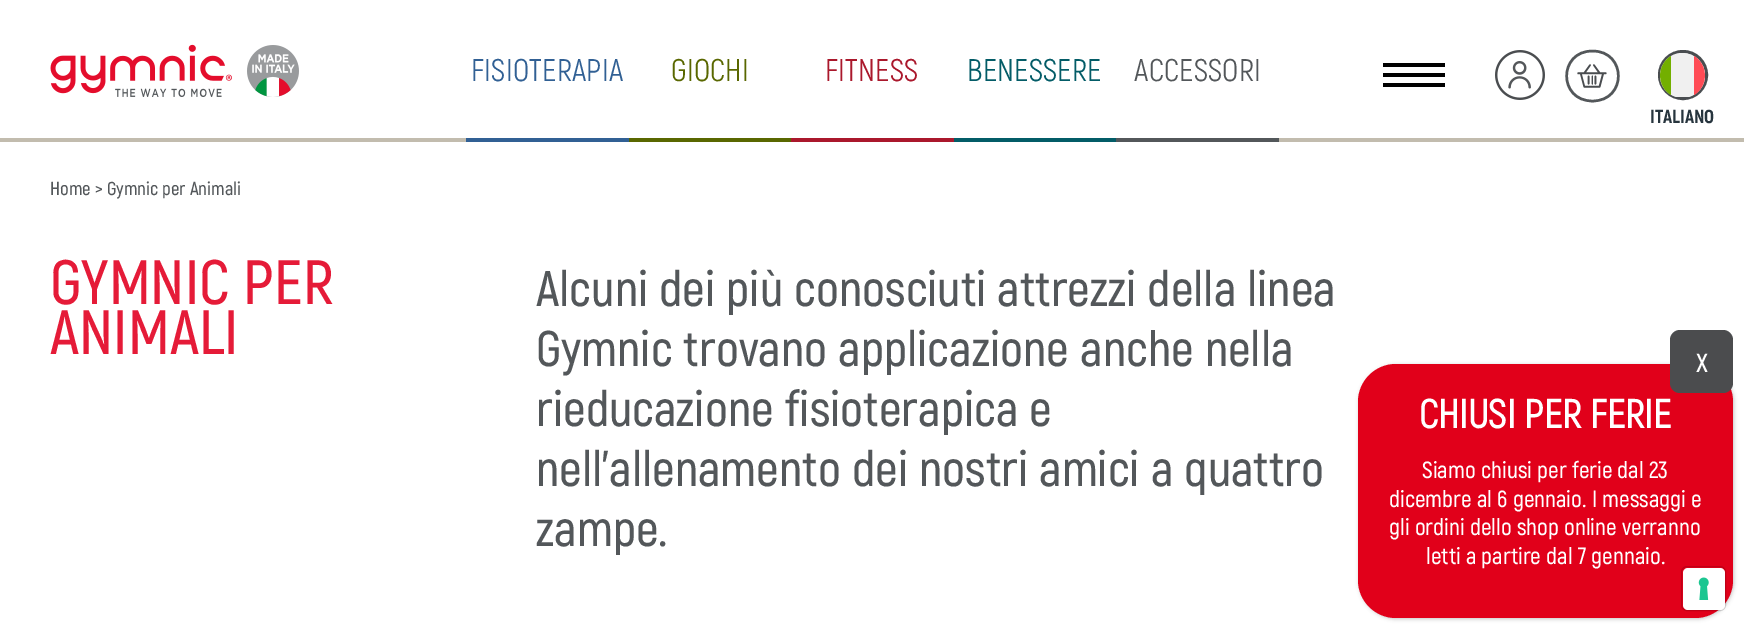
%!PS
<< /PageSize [1744 629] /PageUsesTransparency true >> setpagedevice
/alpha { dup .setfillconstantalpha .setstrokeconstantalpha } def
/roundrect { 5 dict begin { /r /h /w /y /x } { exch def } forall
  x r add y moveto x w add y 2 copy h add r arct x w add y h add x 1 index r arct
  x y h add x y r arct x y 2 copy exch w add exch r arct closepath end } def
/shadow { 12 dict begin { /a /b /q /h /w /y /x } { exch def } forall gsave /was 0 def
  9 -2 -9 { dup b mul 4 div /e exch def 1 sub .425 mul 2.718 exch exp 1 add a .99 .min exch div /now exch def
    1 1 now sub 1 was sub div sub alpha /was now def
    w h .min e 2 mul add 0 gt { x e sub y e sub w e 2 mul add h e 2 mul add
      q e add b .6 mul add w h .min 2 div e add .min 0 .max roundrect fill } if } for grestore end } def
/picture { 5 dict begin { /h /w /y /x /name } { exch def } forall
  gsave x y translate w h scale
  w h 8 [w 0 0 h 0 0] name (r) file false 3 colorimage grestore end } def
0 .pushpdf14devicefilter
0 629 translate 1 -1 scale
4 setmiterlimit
1 setgray
0 0 1744 629 rectfill
0.761 0.737 0.682 setrgbcolor
0 138 1744 4 rectfill
(img1.rgb) 50 44 249 53 picture
0.192 0.376 0.58 setrgbcolor
466 138 163 4 rectfill
/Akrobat-Regular [31.25 0 0 -31.25 0 0] selectfont
471 81 moveto 0.25 0 (FISIOTERAPIA) ashow
0.349 0.404 0 setrgbcolor
629 138 162 4 rectfill
671 81 moveto 0.25 0 (GIOCHI) ashow
0.667 0.094 0.173 setrgbcolor
791 138 163 4 rectfill
825 81 moveto 0.25 0 (FITNESS) ashow
0.012 0.361 0.404 setrgbcolor
954 138 162 4 rectfill
967 81 moveto 0.25 0 (BENESSERE) ashow
0.325 0.341 0.353 setrgbcolor
1116 138 163 4 rectfill
1134 81 moveto 0.25 0 (ACCESSORI) ashow
0 setgray
1383 63 62 4 rectfill
1383 73 62 4 rectfill
1383 83 62 4 rectfill
(img2.rgb) 1495 50 50 50 picture
(img3.rgb) 1577 64 30 24 picture
0.325 0.341 0.353 setrgbcolor
2.5 setlinewidth
newpath 1592.5 51 moveto 1627 51 1627 101 1592.5 101 curveto 1558 101 1558 51 1592.5 51 curveto closepath stroke
0.286 0.302 0.314 setrgbcolor
3 setlinewidth
newpath 1683 75 23.5 0 360 arc closepath stroke
0.941 setgray
newpath 1682 53 moveto 1670 53 1660 63 1660 76 curveto 1660 86 1667 94 1676 97 curveto 1689 97 lineto 1698 94 1705 86 1705 76 curveto 1705 63 1695 53 1682 53 curveto closepath fill
0.451 0.686 0 setrgbcolor
newpath 1671 56 moveto 1656.5 65 1656.5 86 1671 95 curveto closepath fill
1 0.294 0.333 setrgbcolor
newpath 1694 95 moveto 1708.5 86 1708.5 65 1694 56 curveto closepath fill
/Akrobat-ExtraBold [18.75 0 0 -18.75 0 0] selectfont
0.153 0.208 0.243 setrgbcolor
1650 123 moveto (ITALIANO) show
/Akrobat-SemiBold [18.75 0 0 -18.75 0 0] selectfont
0.325 0.341 0.353 setrgbcolor
50 195 moveto (Home > Gymnic per Animali) show
/Akrobat-SemiBold [62.5 0 0 -62.5 0 0] selectfont
0.898 0.106 0.22 setrgbcolor
50 304 moveto (GYMNIC PER) show
50 354 moveto (ANIMALI) show
/Akrobat-SemiBold [50 0 0 -50 0 0] selectfont
0.325 0.341 0.353 setrgbcolor
536 306 moveto (Alcuni dei più conosciuti attrezzi della linea) show
536 366 moveto (Gymnic trovano applicazione anche nella) show
536 426 moveto (rieducazione fisioterapica e) show
536 486 moveto (nell’allenamento dei nostri amici a quattro) show
536 546 moveto (zampe.) show
0.008 setgray
1359 365 375 254 38 2 0.23 shadow
0.882 0 0.102 setrgbcolor
1358 364 375 254 38 roundrect fill
0.294 0.298 0.306 setrgbcolor
1670 330 63 63 10 roundrect fill
/Akrobat-Bold [25 0 0 -25 0 0] selectfont
1 setgray
1696 372 moveto (X) show
/Akrobat-Bold [40 0 0 -40 0 0] selectfont
1419 428 moveto (CHIUSI PER FERIE) show
/Akrobat-SemiBold [23.4 0 0 -23.4 0 0] selectfont
1422 478 moveto (Siamo chiusi per ferie dal 23) show
1389 507 moveto (dicembre al 6 gennaio. I messaggi e) show
1389 535 moveto (gli ordini dello shop online verranno) show
1426 564 moveto (letti a partire dal 7 gennaio.) show
0.15 alpha
0 setgray
1 setlinewidth
1681.5 566.5 44 44 5.5 roundrect stroke
1 alpha
1 setgray
1683 568 42 42 5 roundrect fill
(img4.rgb) 1698 577 11 23 picture
.poppdf14devicefilter showpage
